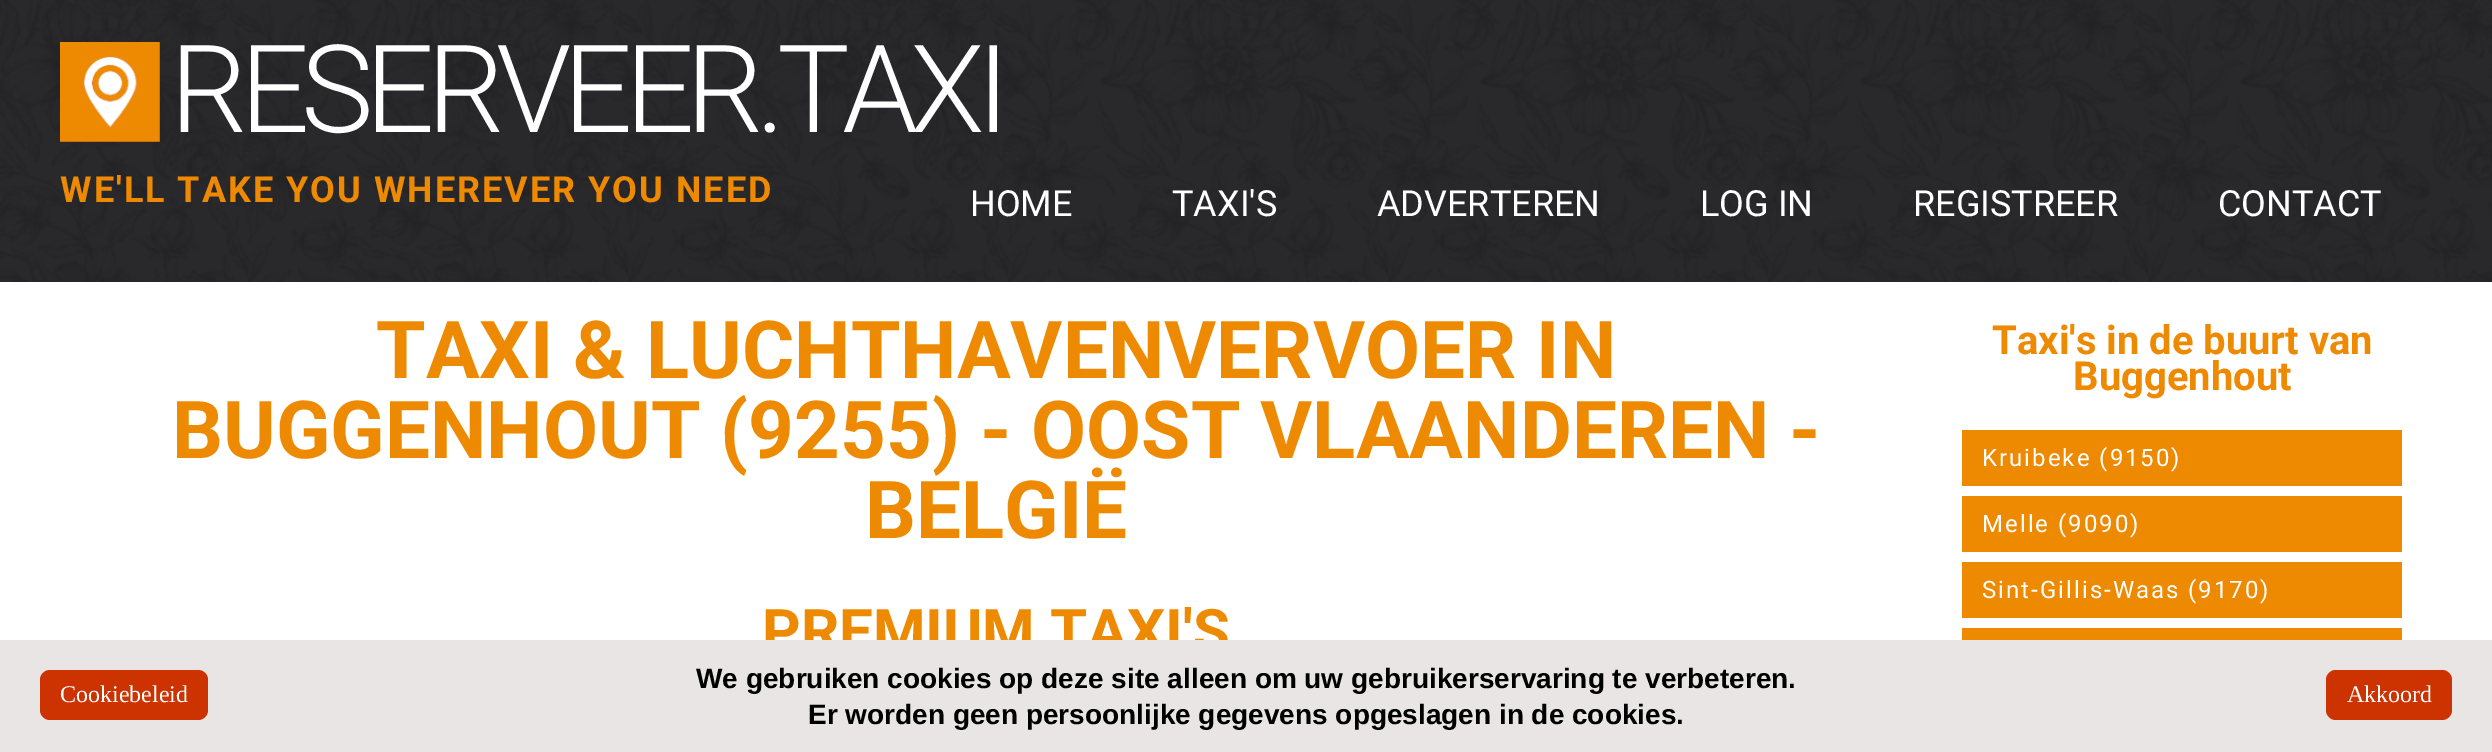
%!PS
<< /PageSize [2492 752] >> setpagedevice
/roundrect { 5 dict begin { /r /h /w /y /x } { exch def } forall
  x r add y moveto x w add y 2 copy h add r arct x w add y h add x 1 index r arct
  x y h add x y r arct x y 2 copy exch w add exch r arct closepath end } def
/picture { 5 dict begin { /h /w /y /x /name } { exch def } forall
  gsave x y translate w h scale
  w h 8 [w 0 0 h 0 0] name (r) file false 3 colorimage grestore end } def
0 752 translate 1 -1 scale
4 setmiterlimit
1 setgray
0 0 2492 752 rectfill
(img1.rgb) 0 0 2492 282 picture
(img2.rgb) 60 42 100 100 picture
/Roboto-Light [122 0 0 -122 0 0] selectfont
170 132 moveto -8 0 (RESERVEER.TAXI) ashow
/Roboto-Bold [36 0 0 -36 0 0] selectfont
0.933 0.541 0.004 setrgbcolor
60 202 moveto 2 0 (WE'LL TAKE YOU WHEREVER YOU NEED) ashow
/Roboto-Regular [36 0 0 -36 0 0] selectfont
1 setgray
970 216 moveto (HOME) show
1172 216 moveto (TAXI'S) show
1377 216 moveto (ADVERTEREN) show
1700 216 moveto (LOG IN) show
1913 216 moveto (REGISTREER) show
2218 216 moveto (CONTACT) show
/Roboto-Bold [60 0 0 -60 0 0] selectfont
0.933 0.541 0.004 setrgbcolor
762 652 moveto (PREMIUM TAXI'S) show
0.914 0.898 0.898 setrgbcolor
0 640 2492 112 rectfill
0.8 0.2 0 setrgbcolor
40 670 168 50 10 roundrect fill
/LiberationSerif-Regular [24 0 0 -24 0 0] selectfont
1 setgray
60 702 moveto (Cookiebeleid) show
/LiberationSans-Bold [28 0 0 -28 0 0] selectfont
0 setgray
696 688 moveto (We gebruiken cookies op deze site alleen om uw gebruikerservaring te verbeteren.) show
808 724 moveto (Er worden geen persoonlijke gegevens opgeslagen in de cookies.) show
0.8 0.2 0 setrgbcolor
2326 670 126 50 10 roundrect fill
/LiberationSerif-Regular [24 0 0 -24 0 0] selectfont
1 setgray
2347 702 moveto (Akkoord) show
/Roboto-Bold [80 0 0 -80 0 0] selectfont
0.933 0.541 0.004 setrgbcolor
376 378 moveto (TAXI & LUCHTHAVENVERVOER IN) show
172 458 moveto (BUGGENHOUT \(9255\) - OOST VLAANDEREN -) show
865 538 moveto (BELGIË) show
/Roboto-Bold [40 0 0 -40 0 0] selectfont
1992 354 moveto (Taxi's in de buurt van) show
2073 390 moveto (Buggenhout) show
1962 430 440 56 rectfill
/Roboto-Regular [24 0 0 -24 0 0] selectfont
1 setgray
1982 466 moveto 2 0 (Kruibeke \(9150\)) ashow
0.933 0.541 0.004 setrgbcolor
1962 496 440 56 rectfill
1 setgray
1982 532 moveto 2 0 (Melle \(9090\)) ashow
0.933 0.541 0.004 setrgbcolor
1962 562 440 56 rectfill
1 setgray
1982 598 moveto 2 0 (Sint-Gillis-Waas \(9170\)) ashow
0.933 0.541 0.004 setrgbcolor
1962 628 440 12 rectfill
showpage
